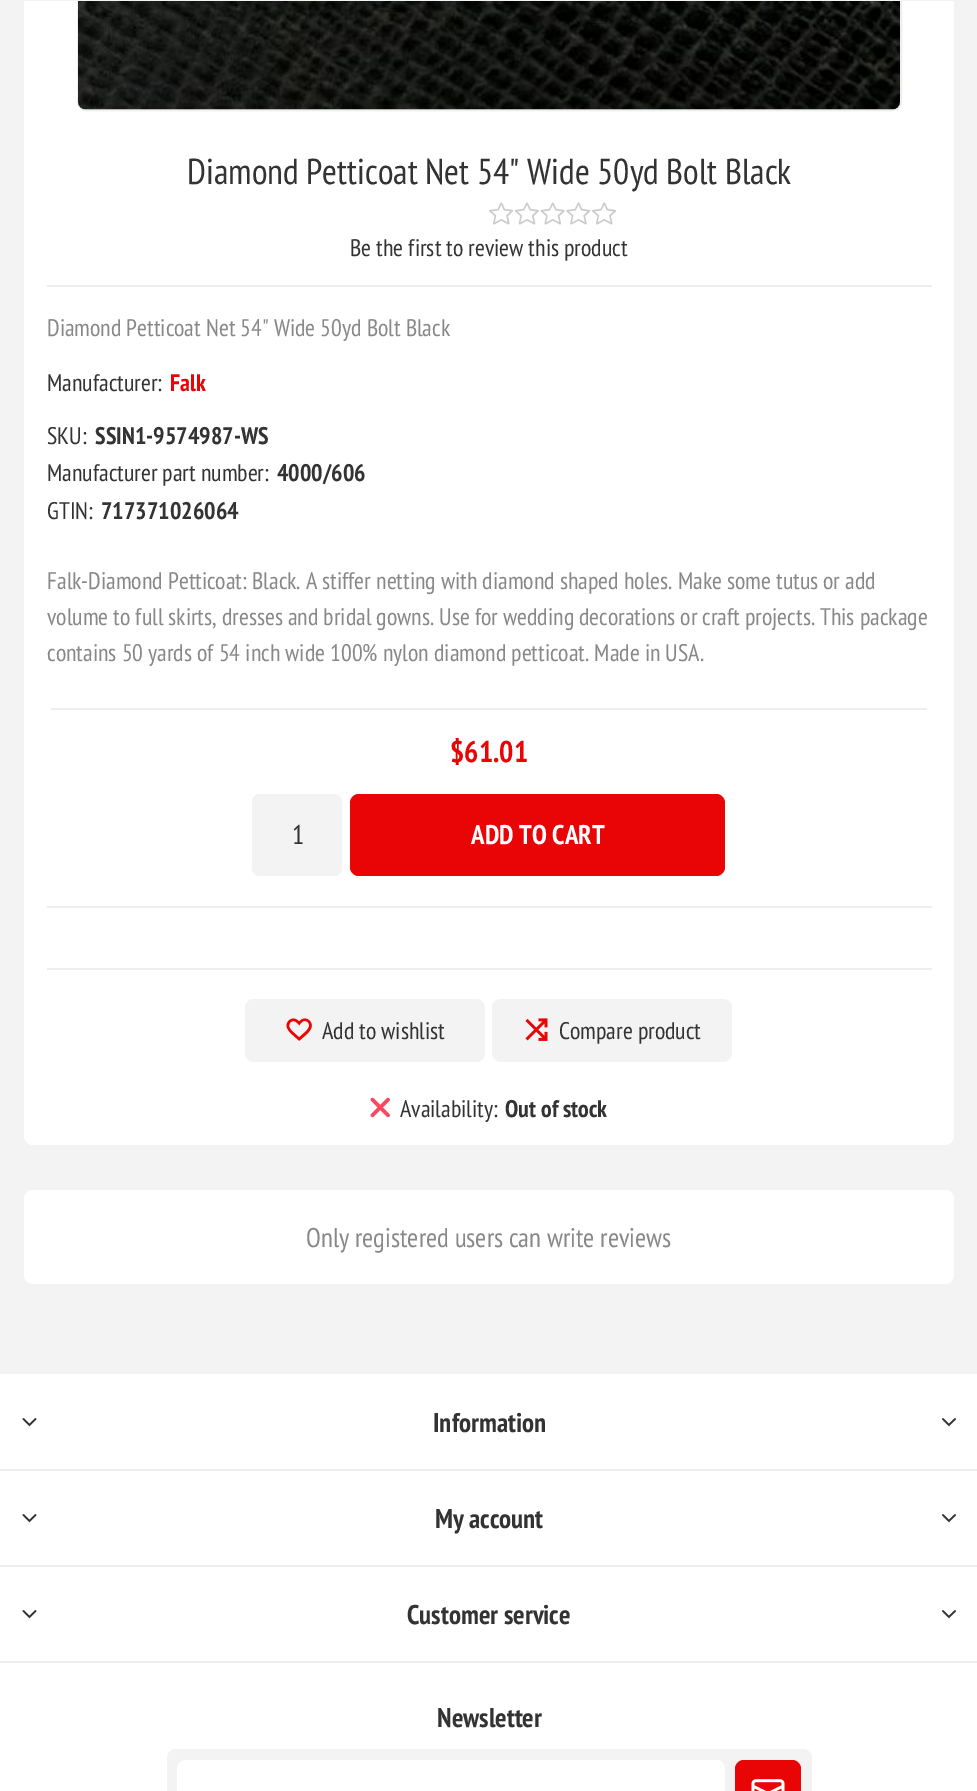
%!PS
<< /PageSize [977 1791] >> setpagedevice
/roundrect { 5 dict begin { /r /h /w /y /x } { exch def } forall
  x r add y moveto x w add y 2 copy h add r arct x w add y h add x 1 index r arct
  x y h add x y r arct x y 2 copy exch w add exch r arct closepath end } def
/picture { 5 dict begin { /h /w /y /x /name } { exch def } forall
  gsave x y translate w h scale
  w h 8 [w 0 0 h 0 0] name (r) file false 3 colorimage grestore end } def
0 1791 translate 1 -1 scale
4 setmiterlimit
0.953 setgray
0 0 977 1791 rectfill
1 setgray
24 -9 930 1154 9 roundrect fill
0.933 setgray
2 setlinewidth
78 -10 823 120 8 roundrect stroke
0.953 setgray
24 0 930 1 rectfill
(img1.rgb) 78 1 822 109 picture
/PTSansNarrow-Regular [36 0 0 -36 0 0] selectfont
0.2 setgray
187 184 moveto (Diamond Petticoat Net 54" Wide 50yd Bolt Black) show
(img2.rgb) 489 202 127 23 picture
/PTSansNarrow-Regular [24 0 0 -24 0 0] selectfont
350 256 moveto (Be the first to review this product) show
0.933 setgray
47 285 885 2 rectfill
0.533 setgray
47 336 moveto (Diamond Petticoat Net 54" Wide 50yd Bolt Black) show
0.2 setgray
47 391 moveto (Manufacturer:) show
/PTSansNarrow-Bold [24 0 0 -24 0 0] selectfont
0.914 0.02 0.02 setrgbcolor
170 391 moveto (Falk) show
/PTSansNarrow-Regular [24 0 0 -24 0 0] selectfont
0.2 setgray
47 444 moveto (SKU:) show
/PTSansNarrow-Bold [24 0 0 -24 0 0] selectfont
95 444 moveto (SSIN1-9574987-WS) show
/PTSansNarrow-Regular [24 0 0 -24 0 0] selectfont
47 481 moveto (Manufacturer part number:) show
/PTSansNarrow-Bold [24 0 0 -24 0 0] selectfont
277 481 moveto (4000/606) show
/PTSansNarrow-Regular [24 0 0 -24 0 0] selectfont
47 519 moveto (GTIN:) show
/PTSansNarrow-Bold [24 0 0 -24 0 0] selectfont
101 519 moveto (717371026064) show
/PTSansNarrow-Regular [24 0 0 -24 0 0] selectfont
0.533 setgray
47 589 moveto (Falk-Diamond Petticoat: Black. A stiffer netting with diamond shaped holes. Make some tutus or add) show
47 625 moveto (volume to full skirts, dresses and bridal gowns. Use for wedding decorations or craft projects. This package) show
47 661 moveto (contains 50 yards of 54 inch wide 100% nylon diamond petticoat. Made in USA.) show
0.933 setgray
51 708 876 2 rectfill
/PTSansNarrow-Bold [30 0 0 -30 0 0] selectfont
0.914 0.02 0.02 setrgbcolor
450 762 moveto ($61.01) show
0.933 setgray
47 906 885 2 rectfill
0.953 setgray
252 794 90 82 8 roundrect fill
/PTSansNarrow-Regular [27 0 0 -27 0 0] selectfont
0.2 setgray
292 844 moveto (1) show
0.914 0.02 0.02 setrgbcolor
350 794 375 82 9 roundrect fill
/PTSansNarrow-Bold [27 0 0 -27 0 0] selectfont
1 setgray
471 844 moveto (ADD TO CART) show
0.933 setgray
47 968 885 2 rectfill
0.953 setgray
245 999 240 63 9 roundrect fill
(img3.rgb) 286 1018 26 23 picture
/PTSansNarrow-Regular [24 0 0 -24 0 0] selectfont
0.2 setgray
322 1039 moveto (Add to wishlist) show
0.953 setgray
492 999 240 63 9 roundrect fill
(img4.rgb) 525 1018 23 23 picture
0.2 setgray
559 1039 moveto (Compare product) show
(img5.rgb) 370 1097 20 21 picture
400 1117 moveto (Availability:) show
/PTSansNarrow-Bold [24 0 0 -24 0 0] selectfont
505 1117 moveto (Out of stock) show
1 setgray
24 1190 930 94 9 roundrect fill
/PTSansNarrow-Regular [27 0 0 -27 0 0] selectfont
0.533 setgray
306 1247 moveto (Only registered users can write reviews) show
1 setgray
0 1374 977 417 rectfill
0.933 setgray
0 1469 977 2 rectfill
(img6.rgb) 22 1418 15 9 picture
/PTSansNarrow-Bold [27 0 0 -27 0 0] selectfont
0.2 setgray
433 1432 moveto (Information) show
(img7.rgb) 942 1418 14 9 picture
0.933 setgray
0 1565 977 2 rectfill
(img6.rgb) 22 1514 15 9 picture
0.2 setgray
435 1528 moveto (My account) show
(img7.rgb) 942 1514 14 9 picture
0.933 setgray
0 1661 977 2 rectfill
(img6.rgb) 22 1610 15 9 picture
0.2 setgray
407 1624 moveto (Customer service) show
(img7.rgb) 942 1610 14 9 picture
437 1727 moveto (Newsletter) show
0.953 setgray
167 1749 645 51 9 roundrect fill
1 setgray
177 1760 548 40 9 roundrect fill
0.914 0.02 0.02 setrgbcolor
735 1760 66 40 9 roundrect fill
(img8.rgb) 751 1779 34 12 picture
showpage
